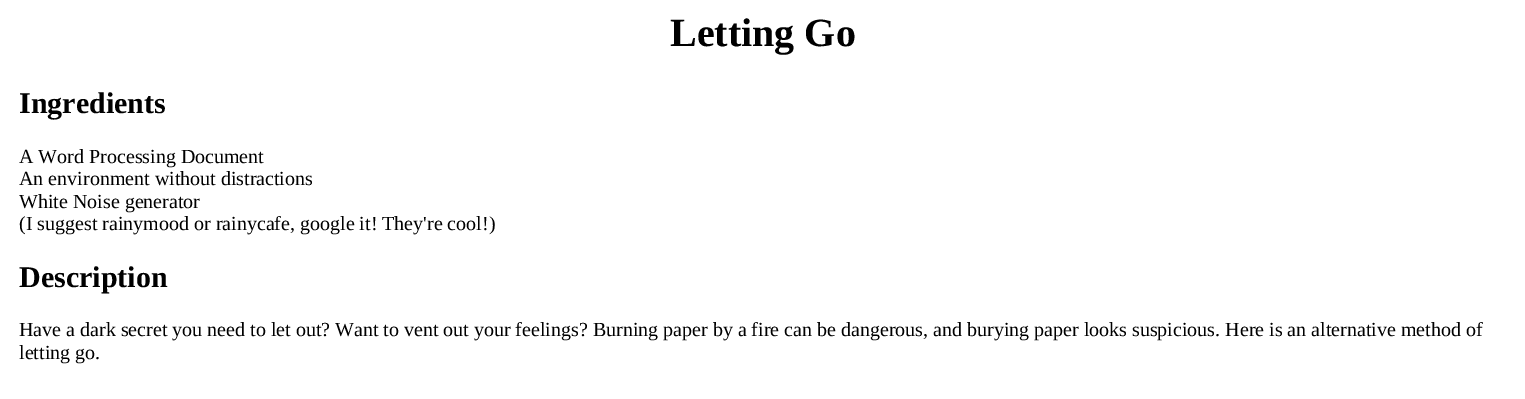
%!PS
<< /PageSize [1525 399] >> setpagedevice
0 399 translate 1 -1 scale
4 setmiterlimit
1 setgray
0 0 1525 399 rectfill
/LiberationSerif-Bold [40 0 0 -40 0 0] selectfont
0 setgray
670 46 moveto (Letting Go) show
/LiberationSerif-Bold [30 0 0 -30 0 0] selectfont
19 113 moveto (Ingredients) show
/LiberationSerif-Regular [20 0 0 -20 0 0] selectfont
19 163 moveto (A Word Processing Document) show
19 185 moveto (An environment without distractions) show
19 208 moveto (White Noise generator) show
19 230 moveto (\(I suggest rainymood or rainycafe, google it! They're cool!\)) show
/LiberationSerif-Bold [30 0 0 -30 0 0] selectfont
19 287 moveto (Description) show
/LiberationSerif-Regular [20 0 0 -20 0 0] selectfont
19 336 moveto (Have a dark secret you need to let out? Want to vent out your feelings? Burning paper by a fire can be dangerous, and burying paper looks suspicious. Here is an alternative method of) show
19 359 moveto (letting go.) show
showpage
